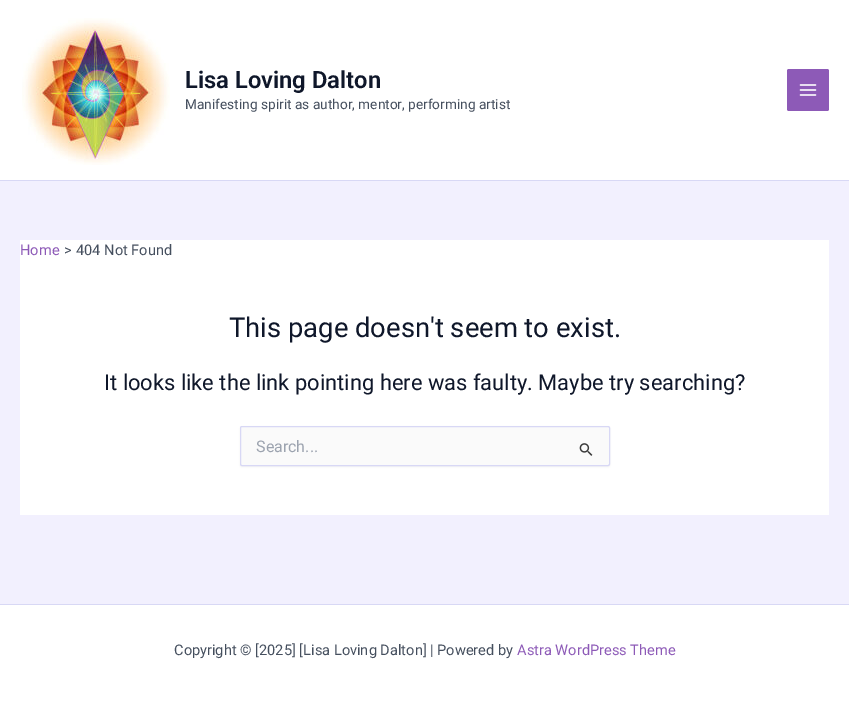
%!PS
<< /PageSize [849 705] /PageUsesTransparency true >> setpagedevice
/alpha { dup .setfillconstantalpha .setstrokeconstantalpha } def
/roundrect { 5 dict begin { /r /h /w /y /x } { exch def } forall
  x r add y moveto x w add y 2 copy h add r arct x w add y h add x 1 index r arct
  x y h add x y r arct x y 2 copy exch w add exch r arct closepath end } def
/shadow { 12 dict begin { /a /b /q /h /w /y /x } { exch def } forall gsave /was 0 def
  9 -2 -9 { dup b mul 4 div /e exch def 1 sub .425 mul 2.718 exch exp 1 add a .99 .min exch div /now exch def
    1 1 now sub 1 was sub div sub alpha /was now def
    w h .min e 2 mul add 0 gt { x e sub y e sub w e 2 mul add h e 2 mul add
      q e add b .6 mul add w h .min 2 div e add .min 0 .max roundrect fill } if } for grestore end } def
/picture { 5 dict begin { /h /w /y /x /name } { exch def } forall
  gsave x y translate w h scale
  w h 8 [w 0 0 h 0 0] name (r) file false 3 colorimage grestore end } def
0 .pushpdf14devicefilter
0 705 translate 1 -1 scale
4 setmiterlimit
0.949 0.941 0.996 setrgbcolor
0 0 849 705 rectfill
1 setgray
0 0 849 180 rectfill
0.847 0.847 0.961 setrgbcolor
0 180 849 1 rectfill
(img1.rgb) 22 18 148 147 picture
/Roboto-SemiBold [23.75 0 0 -23.75 0 0] selectfont
0.059 0.09 0.165 setrgbcolor
185 88 moveto (Lisa Loving Dalton) show
/Roboto-Regular [13.7 0 0 -13.7 0 0] selectfont
0.271 0.31 0.369 setrgbcolor
185 109 moveto (Manifesting spirit as author, mentor, performing artist) show
0.553 0.353 0.718 setrgbcolor
787 69 42 42 2 roundrect fill
(img2.rgb) 799 84 18 12 picture
1 setgray
20 240 809 275 rectfill
/Roboto-Regular [14.6 0 0 -14.6 0 0] selectfont
0.553 0.353 0.718 setrgbcolor
20 255 moveto (Home) show
0.271 0.31 0.369 setrgbcolor
64 255 moveto (>) show
76 255 moveto (404 Not Found) show
/Roboto-Regular [27.4 0 0 -27.4 0 0] selectfont
0.059 0.09 0.165 setrgbcolor
229 337 moveto (This page doesn't seem to exist.) show
/Roboto-Regular [21.9 0 0 -21.9 0 0] selectfont
104 390 moveto (It looks like the link pointing here was faulty. Maybe try searching?) show
0 setgray
240 427 370 40 2 1 0.05 shadow
0.98 setgray
240.5 426.5 369 39 1.5 roundrect gsave fill grestore
0.847 0.847 0.961 setrgbcolor
stroke
/Roboto-Regular [16 0 0 -16 0 0] selectfont
0.612 0.639 0.686 setrgbcolor
256 452 moveto (Search...) show
(img3.rgb) 579 443 14 13 picture
1 setgray
0 605 849 100 rectfill
0.847 0.847 0.961 setrgbcolor
0 604 849 1 rectfill
/Roboto-Regular [14.6 0 0 -14.6 0 0] selectfont
0.271 0.31 0.369 setrgbcolor
174 655 moveto (Copyright © [2025] [Lisa Loving Dalton] | Powered by) show
0.553 0.353 0.718 setrgbcolor
517 655 moveto (Astra WordPress Theme) show
.poppdf14devicefilter showpage
